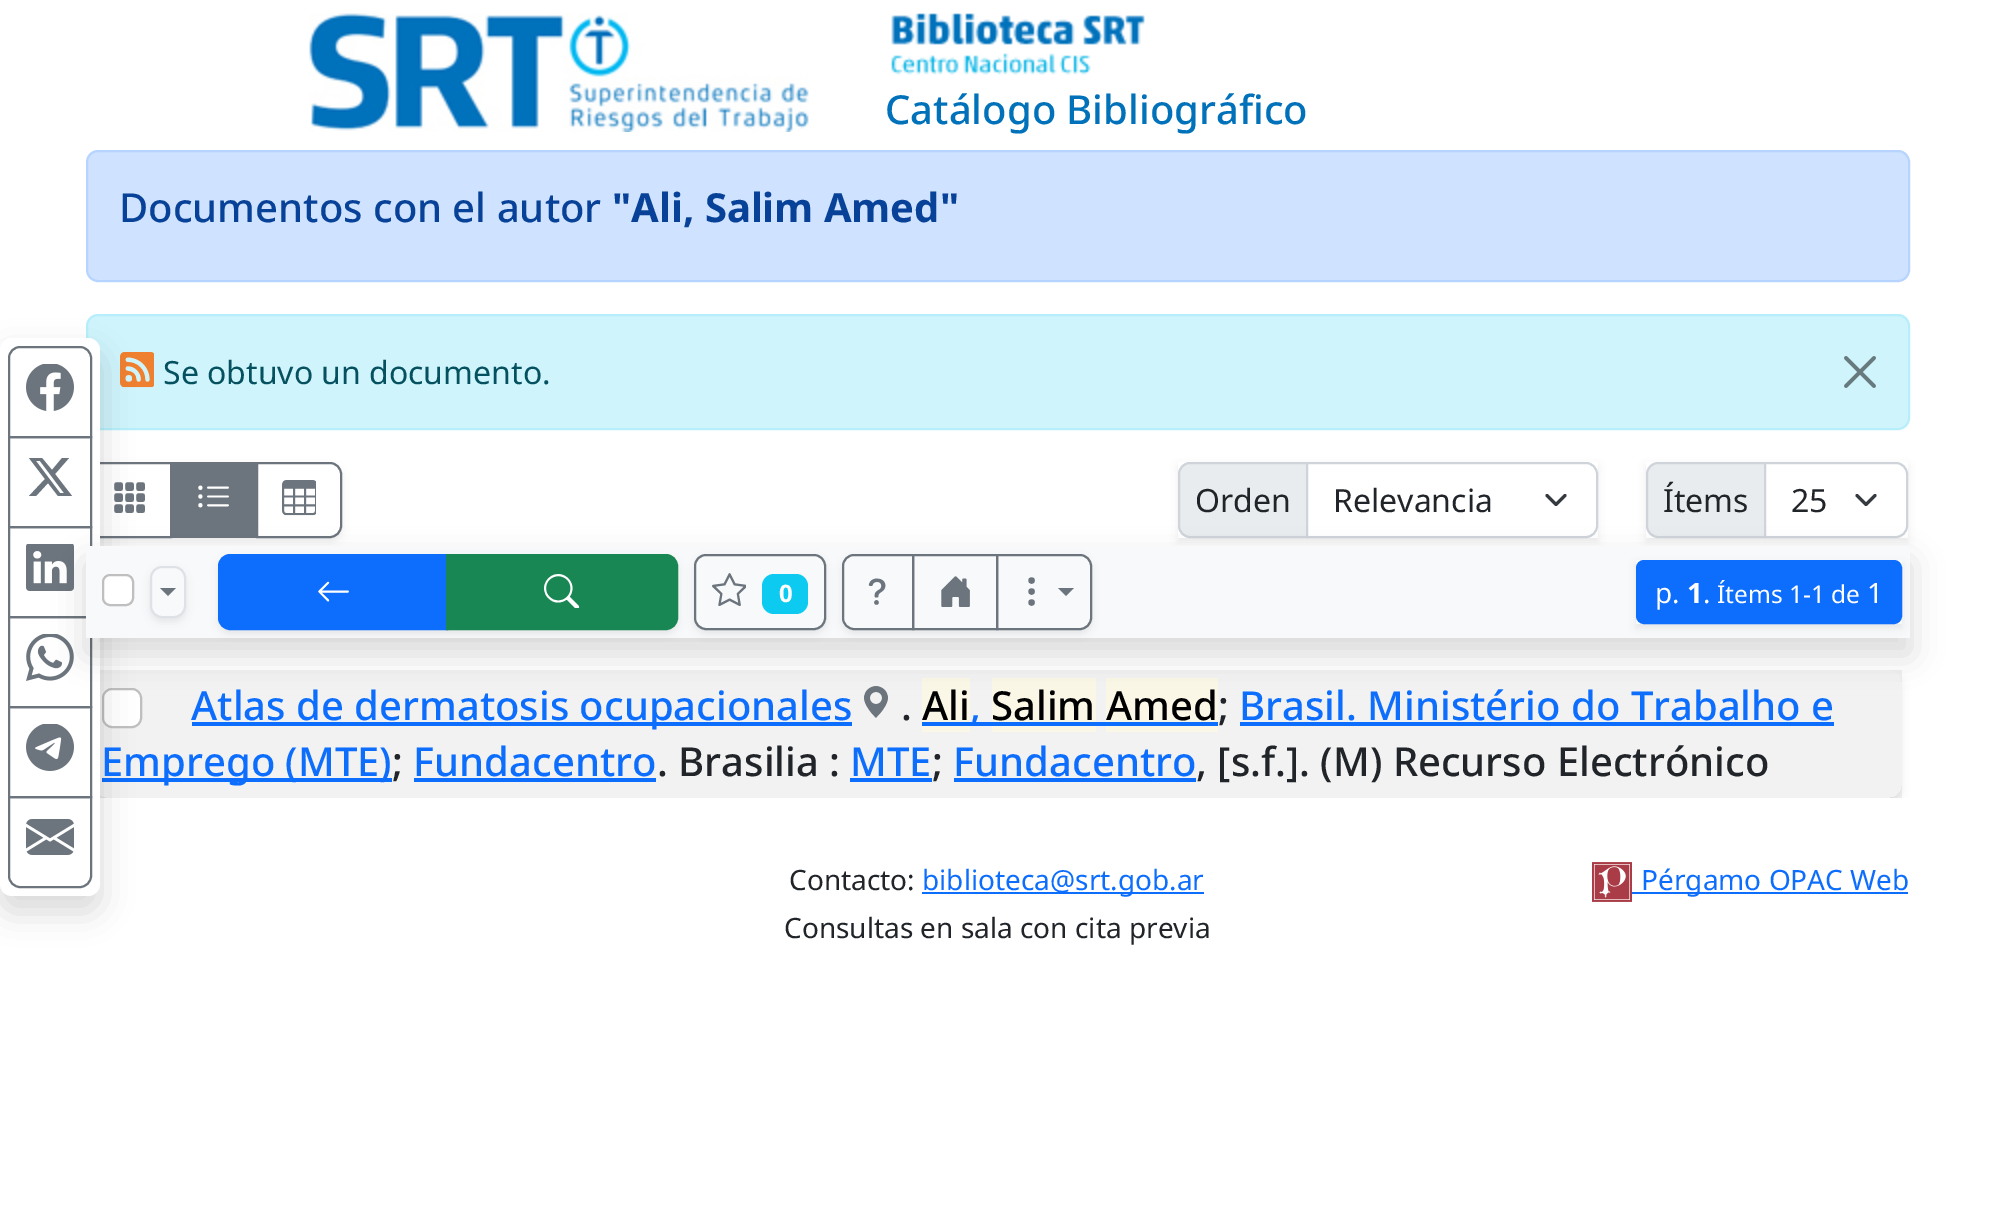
%!PS
<< /PageSize [1994 1230] /PageUsesTransparency true >> setpagedevice
/alpha { dup .setfillconstantalpha .setstrokeconstantalpha } def
/roundrect { 5 dict begin { /r /h /w /y /x } { exch def } forall
  x r add y moveto x w add y 2 copy h add r arct x w add y h add x 1 index r arct
  x y h add x y r arct x y 2 copy exch w add exch r arct closepath end } def
/shadow { 12 dict begin { /a /b /q /h /w /y /x } { exch def } forall gsave /was 0 def
  9 -2 -9 { dup b mul 4 div /e exch def 1 sub .425 mul 2.718 exch exp 1 add a .99 .min exch div /now exch def
    1 1 now sub 1 was sub div sub alpha /was now def
    w h .min e 2 mul add 0 gt { x e sub y e sub w e 2 mul add h e 2 mul add
      q e add b .6 mul add w h .min 2 div e add .min 0 .max roundrect fill } if } for grestore end } def
/picture { 5 dict begin { /h /w /y /x /name } { exch def } forall
  gsave x y translate w h scale
  w h 8 [w 0 0 h 0 0] name (r) file false 3 colorimage grestore end } def
0 .pushpdf14devicefilter
0 1230 translate 1 -1 scale
4 setmiterlimit
1 setgray
0 0 1994 1230 rectfill
0.812 0.957 0.988 setrgbcolor
87 315 1822 114 11 roundrect gsave fill grestore
0.714 0.937 0.984 setrgbcolor
2 setlinewidth
stroke
(img8.rgb) 120 352 34 36 picture
gsave
newpath 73 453 moveto 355 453 lineto 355 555 lineto 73 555 lineto closepath 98 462 moveto 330 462 lineto 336.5 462 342 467.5 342 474 curveto 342 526 lineto 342 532.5 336.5 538 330 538 curveto 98 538 lineto 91.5 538 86 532.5 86 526 curveto 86 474 lineto 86 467.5 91.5 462 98 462 curveto closepath eoclip newpath
0 setgray
86 466 256 76 12 4 0.07 shadow
grestore
0.424 0.459 0.49 setrgbcolor
87 463 84 74 rectstroke
(img10.rgb) 114 482 31 31 picture
gsave
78 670 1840 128 rectclip
newpath 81 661 moveto 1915 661 lineto 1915 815 lineto 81 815 lineto closepath 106 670 moveto 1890 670 lineto 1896.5 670 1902 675.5 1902 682 curveto 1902 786 lineto 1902 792.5 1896.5 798 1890 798 curveto 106 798 lineto 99.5 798 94 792.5 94 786 curveto 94 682 lineto 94 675.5 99.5 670 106 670 curveto closepath eoclip newpath
0 setgray
94 674 1808 128 12 4 0.07 shadow
grestore
0.05 alpha
0 setgray
100 670 1802 128 rectfill
1 alpha
1 setgray
102 688 40 40 10 roundrect fill
0.25 alpha
0 setgray
103 689 38 38 9 roundrect stroke
1 alpha
0.051 0.431 0.992 setrgbcolor
102 778 290 4 rectfill
0 setgray
0 354 100 558 12 16 0.15 shadow
1 setgray
0 338 100 558 12 roundrect fill
0.424 0.459 0.49 setrgbcolor
newpath 20 347 moveto 80 347 lineto 86 347 91 352 91 358 curveto 91 437 lineto 9 437 lineto 9 358 lineto 9 352 14 347 20 347 curveto closepath stroke
(img1.rgb) 26 364 48 47 picture
9 437 82 90 rectstroke
newpath 62 458 moveto 69 458 lineto 55 474 lineto 72 496 lineto 58 496 lineto 48 483 lineto 36 496 lineto 29 496 lineto 45 479 lineto 29 458 lineto 42 458 lineto 52 470 lineto closepath 60 493 moveto 64 493 lineto 40 461 lineto 36 461 lineto closepath fill
9 527 82 90 rectstroke
(img2.rgb) 26 544 48 47 picture
9 617 82 90 rectstroke
(img3.rgb) 26 634 48 47 picture
9 707 82 90 rectstroke
(img4.rgb) 26 724 48 47 picture
newpath 9 797 moveto 91 797 lineto 91 876 lineto 91 882 86 887 80 887 curveto 20 887 lineto 14 887 9 882 9 876 curveto closepath stroke
(img5.rgb) 26 819 48 36 picture
(img6.rgb) 309 13 500 119 picture
(img7.rgb) 891 13 254 62 picture
/NotoSans-Medium [40 0 0 -40 0 0] selectfont
0.004 0.447 0.729 setrgbcolor
885 124 moveto (Catálogo Bibliográfico) show
0.812 0.886 1 setrgbcolor
87 151 1822 130 11 roundrect gsave fill grestore
0.714 0.831 0.996 setrgbcolor
stroke
0.031 0.259 0.596 setrgbcolor
119 222 moveto (Documentos con el autor) show
/NotoSans-Bold [40 0 0 -40 0 0] selectfont
612 222 moveto ("Ali, Salim Amed") show
/NotoSans-Regular [32 0 0 -32 0 0] selectfont
0.02 0.318 0.376 setrgbcolor
163 384 moveto (Se obtuvo un documento.) show
(img9.rgb) 1844 356 32 32 picture
0.424 0.459 0.49 setrgbcolor
172 462 84 76 rectfill
(img11.rgb) 198 485 31 23 picture
newpath 257 463 moveto 330 463 lineto 336 463 341 468 341 474 curveto 341 526 lineto 341 532 336 537 330 537 curveto 257 537 lineto closepath stroke
(img12.rgb) 282 480 34 36 picture
gsave
newpath 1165 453 moveto 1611 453 lineto 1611 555 lineto 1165 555 lineto closepath 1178 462 moveto 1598 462 lineto 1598 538 lineto 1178 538 lineto closepath eoclip newpath
0 setgray
1178 466 420 76 0 4 0.07 shadow
grestore
0.914 0.925 0.937 setrgbcolor
newpath 1190 463 moveto 1307 463 lineto 1307 537 lineto 1190 537 lineto 1184 537 1179 532 1179 526 curveto 1179 474 lineto 1179 468 1184 463 1190 463 curveto closepath gsave fill grestore
0.808 0.831 0.855 setrgbcolor
stroke
0.129 0.145 0.161 setrgbcolor
1195 512 moveto (Orden) show
1 setgray
newpath 1306 462 moveto 1586 462 lineto 1592.5 462 1598 467.5 1598 474 curveto 1598 526 lineto 1598 532.5 1592.5 538 1586 538 curveto 1306 538 lineto closepath fill
0.204 0.227 0.251 setrgbcolor
3 setlinewidth
1 setlinecap
1 setlinejoin
newpath 1547 495.5 moveto 1556 504.5 lineto 1565 495.5 lineto stroke
0.808 0.831 0.855 setrgbcolor
2 setlinewidth
0 setlinecap
0 setlinejoin
newpath 1307 463 moveto 1586 463 lineto 1592 463 1597 468 1597 474 curveto 1597 526 lineto 1597 532 1592 537 1586 537 curveto 1307 537 lineto closepath stroke
0.129 0.145 0.161 setrgbcolor
1333 512 moveto (Relevancia) show
gsave
newpath 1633 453 moveto 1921 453 lineto 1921 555 lineto 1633 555 lineto closepath 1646 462 moveto 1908 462 lineto 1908 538 lineto 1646 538 lineto closepath eoclip newpath
0 setgray
1646 466 262 76 0 4 0.07 shadow
grestore
0.914 0.925 0.937 setrgbcolor
newpath 1658 463 moveto 1765 463 lineto 1765 537 lineto 1658 537 lineto 1652 537 1647 532 1647 526 curveto 1647 474 lineto 1647 468 1652 463 1658 463 curveto closepath gsave fill grestore
0.808 0.831 0.855 setrgbcolor
stroke
0.129 0.145 0.161 setrgbcolor
1663 512 moveto (Ítems) show
1 setgray
newpath 1764 462 moveto 1896 462 lineto 1902.5 462 1908 467.5 1908 474 curveto 1908 526 lineto 1908 532.5 1902.5 538 1896 538 curveto 1764 538 lineto closepath fill
0.204 0.227 0.251 setrgbcolor
3 setlinewidth
1 setlinecap
1 setlinejoin
newpath 1857 495.5 moveto 1866 504.5 lineto 1875 495.5 lineto stroke
0.808 0.831 0.855 setrgbcolor
2 setlinewidth
0 setlinecap
0 setlinejoin
newpath 1765 463 moveto 1896 463 lineto 1902 463 1907 468 1907 474 curveto 1907 526 lineto 1907 532 1902 537 1896 537 curveto 1765 537 lineto closepath stroke
0.129 0.145 0.161 setrgbcolor
1791 512 moveto (25) show
(img19.rgb) 864 686 24 32 picture
0.98 0.969 0.906 setrgbcolor
922 678 48 54 rectfill
992 678 104 54 rectfill
1106 678 112 54 rectfill
0 setgray
86 562 1824 92 0 16 0.15 shadow
0.973 0.976 0.98 setrgbcolor
86 546 1824 92 rectfill
1 setgray
102 574 32 32 8 roundrect fill
0.25 alpha
0 setgray
103 575 30 30 7 roundrect stroke
gsave
newpath 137 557 moveto 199 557 lineto 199 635 lineto 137 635 lineto closepath 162 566 moveto 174 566 lineto 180.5 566 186 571.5 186 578 curveto 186 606 lineto 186 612.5 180.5 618 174 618 curveto 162 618 lineto 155.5 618 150 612.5 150 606 curveto 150 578 lineto 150 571.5 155.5 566 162 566 curveto closepath eoclip newpath
1 alpha
150 570 36 52 12 4 0.07 shadow
grestore
1 alpha
0.871 0.886 0.902 setrgbcolor
151 567 34 50 11 roundrect stroke
0.424 0.459 0.49 setrgbcolor
newpath 160 588 moveto 176 588 lineto 168 596 lineto closepath fill
0 setgray
218 558 460 76 12 4 0.07 shadow
0.051 0.431 0.992 setrgbcolor
newpath 230 555 moveto 447 555 lineto 447 629 lineto 230 629 lineto 224 629 219 624 219 618 curveto 219 566 lineto 219 560 224 555 230 555 curveto closepath gsave fill grestore
stroke
(img13.rgb) 318 581 31 21 picture
0.098 0.529 0.329 setrgbcolor
newpath 447 555 moveto 666 555 lineto 672 555 677 560 677 566 curveto 677 618 lineto 677 624 672 629 666 629 curveto 447 629 lineto closepath gsave fill grestore
stroke
(img14.rgb) 544 574 36 34 picture
gsave
newpath 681 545 moveto 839 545 lineto 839 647 lineto 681 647 lineto closepath 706 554 moveto 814 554 lineto 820.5 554 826 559.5 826 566 curveto 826 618 lineto 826 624.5 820.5 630 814 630 curveto 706 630 lineto 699.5 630 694 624.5 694 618 curveto 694 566 lineto 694 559.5 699.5 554 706 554 curveto closepath eoclip newpath
0 setgray
694 558 132 76 12 4 0.07 shadow
grestore
0.424 0.459 0.49 setrgbcolor
695 555 130 74 11 roundrect stroke
(img15.rgb) 712 573 34 33 picture
0.051 0.792 0.941 setrgbcolor
762 574 46 40 12 roundrect fill
/NotoSans-Bold [24 0 0 -24 0 0] selectfont
1 setgray
779 602 moveto (0) show
gsave
newpath 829 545 moveto 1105 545 lineto 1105 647 lineto 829 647 lineto closepath 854 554 moveto 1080 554 lineto 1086.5 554 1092 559.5 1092 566 curveto 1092 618 lineto 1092 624.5 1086.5 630 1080 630 curveto 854 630 lineto 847.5 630 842 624.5 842 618 curveto 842 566 lineto 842 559.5 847.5 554 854 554 curveto closepath eoclip newpath
0 setgray
842 558 250 76 12 4 0.07 shadow
grestore
0.424 0.459 0.49 setrgbcolor
newpath 854 555 moveto 913 555 lineto 913 629 lineto 854 629 lineto 848 629 843 624 843 618 curveto 843 566 lineto 843 560 848 555 854 555 curveto closepath stroke
(img16.rgb) 868 578 18 27 picture
913 555 84 74 rectstroke
(img17.rgb) 941 576 29 31 picture
newpath 997 555 moveto 1080 555 lineto 1086 555 1091 560 1091 566 curveto 1091 618 lineto 1091 624 1086 629 1080 629 curveto 997 629 lineto closepath stroke
(img18.rgb) 1028 577 7 29 picture
newpath 1058 588 moveto 1074 588 lineto 1066 596 lineto closepath fill
gsave
newpath 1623 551 moveto 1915 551 lineto 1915 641 lineto 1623 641 lineto closepath 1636 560 moveto 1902 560 lineto 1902 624 lineto 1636 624 lineto closepath eoclip newpath
0 setgray
1636 564 266 64 0 4 0.07 shadow
grestore
0.051 0.431 0.992 setrgbcolor
1637 561 264 62 7 roundrect gsave fill grestore
stroke
/NotoSans-Regular [28 0 0 -28 0 0] selectfont
1 setgray
1655 603 moveto (p.) show
/NotoSans-Bold [28 0 0 -28 0 0] selectfont
1687 603 moveto (1) show
/NotoSans-Regular [28 0 0 -28 0 0] selectfont
1703 603 moveto (.) show
/NotoSans-Regular [24.5 0 0 -24.5 0 0] selectfont
1717 603 moveto (Ítems 1-1 de) show
/NotoSans-Regular [28 0 0 -28 0 0] selectfont
1867 603 moveto (1) show
0.051 0.431 0.992 setrgbcolor
192 722 660 4 rectfill
/NotoSans-Medium [40 0 0 -40 0 0] selectfont
191 720 moveto (Atlas de dermatosis ocupacionales) show
0.129 0.145 0.161 setrgbcolor
901 720 moveto (.) show
0 setgray
922 720 moveto (Ali) show
0.051 0.431 0.992 setrgbcolor
922 722 70 4 rectfill
970 720 moveto (,) show
992 722 114 4 rectfill
0 setgray
991 720 moveto (Salim) show
1106 720 moveto (Amed) show
0.051 0.431 0.992 setrgbcolor
1106 722 112 4 rectfill
0.129 0.145 0.161 setrgbcolor
1218 720 moveto (;) show
0.051 0.431 0.992 setrgbcolor
1239 720 moveto (Brasil. Ministério do Trabalho e) show
1240 722 594 4 rectfill
101 776 moveto (Emprego \(MTE\)) show
0.129 0.145 0.161 setrgbcolor
392 776 moveto (;) show
0.051 0.431 0.992 setrgbcolor
413 776 moveto (Fundacentro) show
414 778 242 4 rectfill
0.129 0.145 0.161 setrgbcolor
657 776 moveto (. Brasilia :) show
0.051 0.431 0.992 setrgbcolor
850 776 moveto (MTE) show
0.129 0.145 0.161 setrgbcolor
932 776 moveto (;) show
0.051 0.431 0.992 setrgbcolor
850 778 82 4 rectfill
953 776 moveto (Fundacentro) show
954 778 242 4 rectfill
0.129 0.145 0.161 setrgbcolor
1196 776 moveto (, [s.f.]. \(M\) Recurso Electrónico) show
/NotoSans-Regular [28 0 0 -28 0 0] selectfont
789 890 moveto (Contacto:) show
0.051 0.431 0.992 setrgbcolor
922 892 282 2 rectfill
922 890 moveto (biblioteca@srt.gob.ar) show
0.129 0.145 0.161 setrgbcolor
784 938 moveto (Consultas en sala con cita previa) show
(img20.rgb) 1592 862 40 40 picture
0.051 0.431 0.992 setrgbcolor
1632 892 276 2 rectfill
1641 890 moveto (Pérgamo OPAC Web) show
.poppdf14devicefilter showpage
